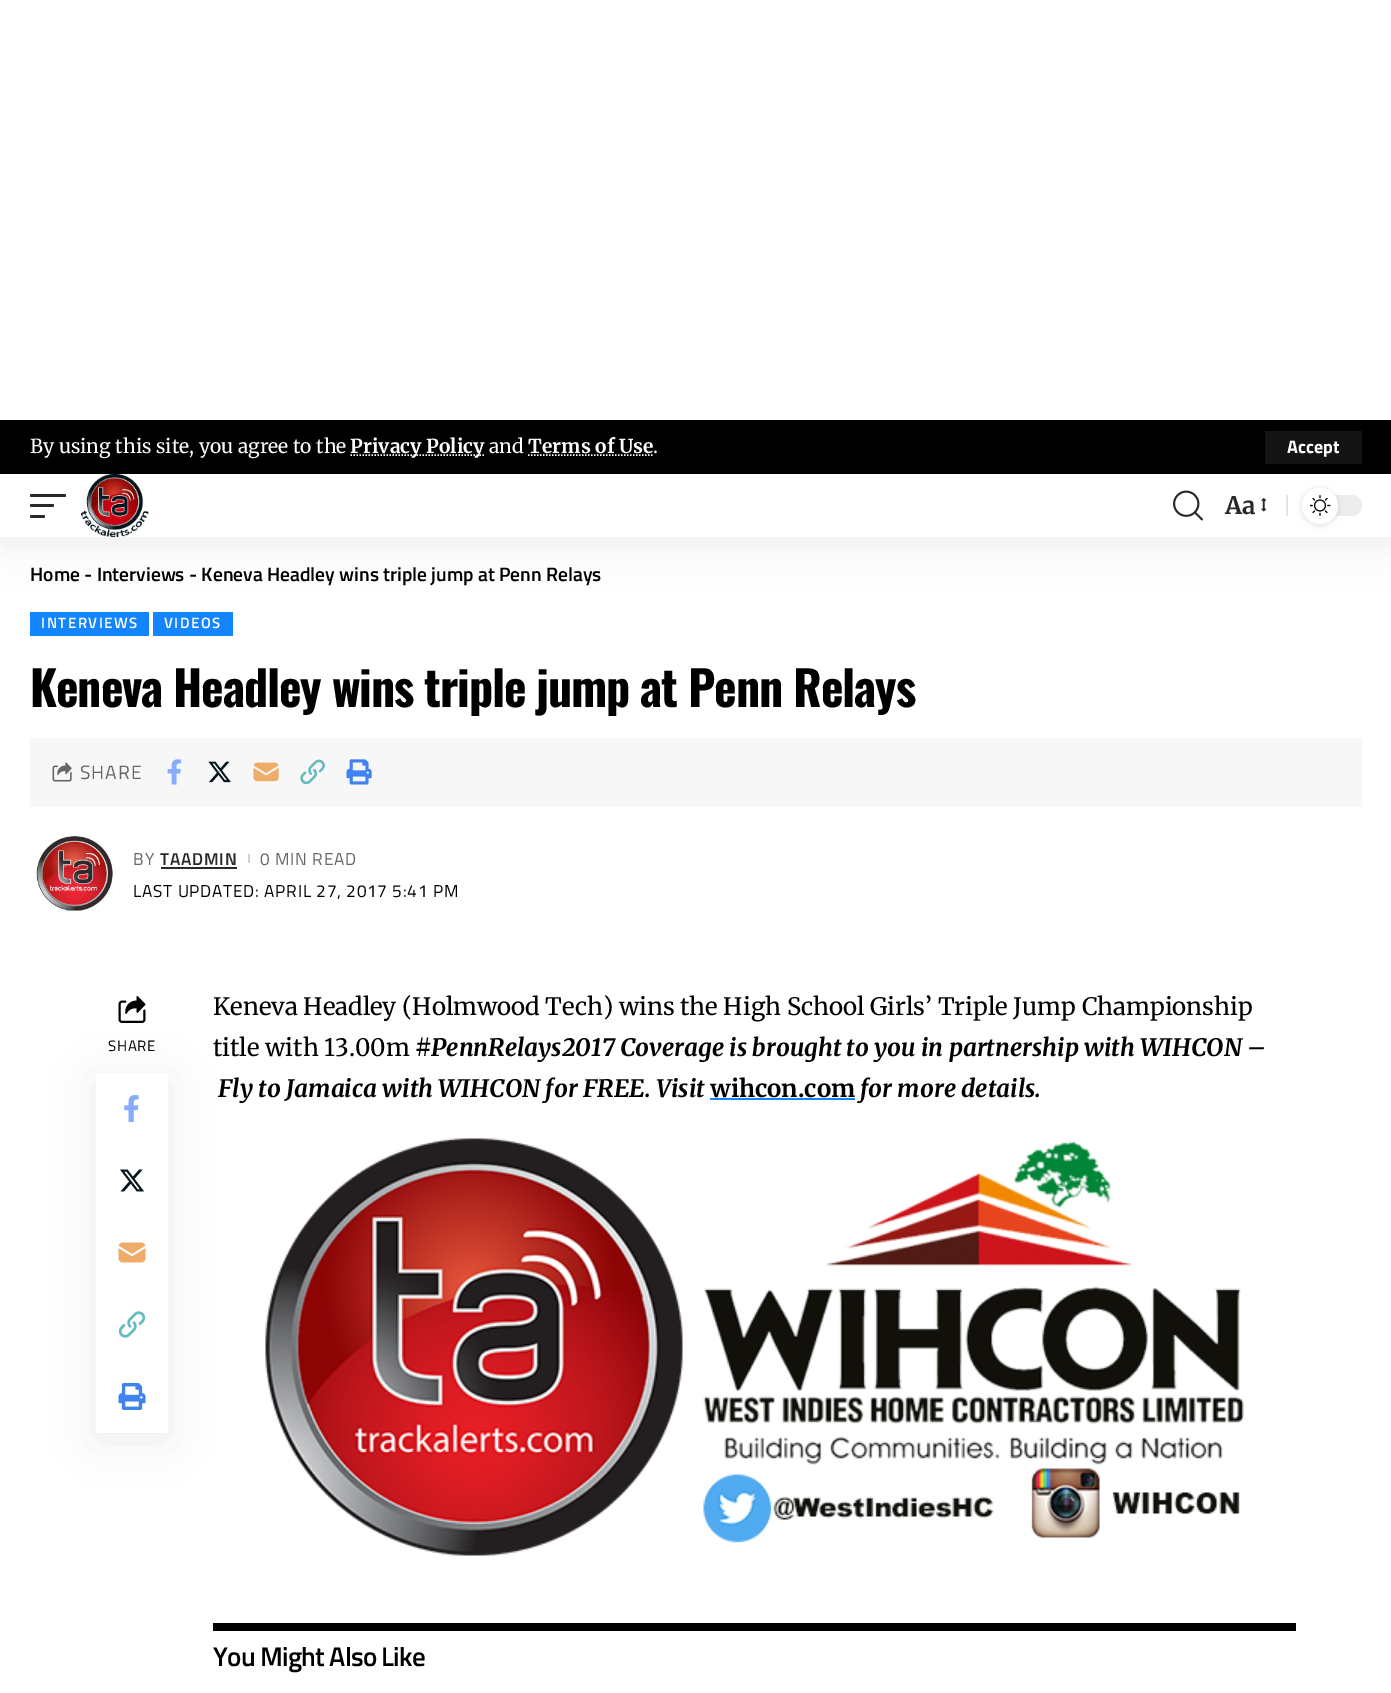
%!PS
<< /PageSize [1391 1693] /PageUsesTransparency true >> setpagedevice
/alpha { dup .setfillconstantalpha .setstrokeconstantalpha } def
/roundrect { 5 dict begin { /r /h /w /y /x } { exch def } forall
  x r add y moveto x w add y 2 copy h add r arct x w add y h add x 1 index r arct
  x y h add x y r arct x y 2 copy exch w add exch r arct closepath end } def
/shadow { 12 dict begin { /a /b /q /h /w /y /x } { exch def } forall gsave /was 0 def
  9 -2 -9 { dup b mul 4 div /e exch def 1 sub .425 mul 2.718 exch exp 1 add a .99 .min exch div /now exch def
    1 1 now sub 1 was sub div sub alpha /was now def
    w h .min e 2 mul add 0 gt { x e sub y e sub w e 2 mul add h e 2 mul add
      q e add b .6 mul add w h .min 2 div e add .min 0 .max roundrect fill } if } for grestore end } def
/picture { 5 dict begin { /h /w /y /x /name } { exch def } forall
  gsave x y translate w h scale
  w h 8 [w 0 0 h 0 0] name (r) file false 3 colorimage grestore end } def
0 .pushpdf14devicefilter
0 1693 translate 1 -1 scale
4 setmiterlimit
1 setgray
0 0 1391 1693 rectfill
0 setgray
0 420 1391 54 rectfill
/Merriweather-Regular [19.25 0 0 -19.25 0 0] selectfont
1 setgray
30 453 moveto (By using this site, you agree to the) show
1.5 setlinewidth
[1.5 1.5] 0 setdash
newpath 350.5 455 moveto 484.5 455 lineto stroke
/Merriweather-Bold [19.25 0 0 -19.25 0 0] selectfont
350 453 moveto (Privacy Policy) show
/Merriweather-Regular [19.25 0 0 -19.25 0 0] selectfont
489 453 moveto (and) show
/Merriweather-Bold [19.25 0 0 -19.25 0 0] selectfont
528 453 moveto (Terms of Use) show
newpath 528 455 moveto 653 455 lineto stroke
/Merriweather-Regular [19.25 0 0 -19.25 0 0] selectfont
653 453 moveto (.) show
0.078 setgray
1265 431 97 33 rectfill
/TitilliumWeb-Bold [18 0 0 -18 0 0] selectfont
1 setgray
1287 453 moveto (Accept) show
gsave
newpath 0 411 moveto 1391 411 lineto 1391 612 lineto 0 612 lineto closepath 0 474 moveto 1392 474 lineto 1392 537 lineto 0 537 lineto closepath eoclip newpath
0 setgray
0 480 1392 63 0 22.5 0.07 shadow
grestore
0.157 setgray
30 494 36 3 1.5 roundrect fill
30 504 24 3 1.5 roundrect fill
30 515 15 3 1.5 roundrect fill
(img1.rgb) 81 474 68 63 picture
(img2.rgb) 1173 490 30 31 picture
/Merriweather-Bold [24 0 0 -24 0 0] selectfont
1225 514 moveto (Aa) show
(img3.rgb) 1261 498 6 14 picture
0.894 setgray
1286 495 2 21 rectfill
0.929 setgray
1302 495 60 21 10.5 roundrect fill
0 setgray
1302 489 36 36 18 3 0.12 shadow
1 setgray
newpath 1320 506 18 0 360 arc closepath fill
(img4.rgb) 1310 495 21 21 picture
/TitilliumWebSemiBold-SemiBold [19.5 0 0 -19.5 0 0] selectfont
0 setgray
30 581 moveto (Home - Interviews - Keneva Headley wins triple jump at Penn Relays) show
0.078 0.522 1 setrgbcolor
30 612 119 24 rectfill
/TitilliumWebSemiBold-SemiBold [15 0 0 -15 0 0] selectfont
1 setgray
41 628 moveto 1.5 0 (INTERVIEWS) ashow
0.078 0.522 1 setrgbcolor
153 612 80 24 rectfill
1 setgray
164 628 moveto 1.5 0 (VIDEOS) ashow
/Oswald-Bold [48 0 0 -48 0 0] selectfont
0 setgray
30 707 moveto -1.15 0 (Keneva Headley wins triple jump at Penn Relays) ashow
0.969 setgray
30 738 1332 69 rectfill
(img5.rgb) 52 762 20 20 picture
/TitilliumWeb-Regular [19.25 0 0 -19.25 0 0] selectfont
0.4 setgray
80 779 moveto 1 0 (SHARE) ashow
(img6.rgb) 167 759 15 26 picture
(img7.rgb) 208 761 23 22 picture
(img8.rgb) 253 762 26 20 picture
(img9.rgb) 300 759 25 26 picture
(img10.rgb) 346 759 26 26 picture
(img11.rgb) 36 836 77 75 picture
/TitilliumWeb-Regular [17.25 0 0 -17.25 0 0] selectfont
133 865 moveto 1 0 (BY) ashow
/TitilliumWebSemiBold-SemiBold [17.25 0 0 -17.25 0 0] selectfont
0.157 setgray
160 865 moveto 0.75 0 (TAADMIN) ashow
161 867 76 2 rectfill
0.82 setgray
248 854 2 9 rectfill
/TitilliumWeb-Regular [17.25 0 0 -17.25 0 0] selectfont
0.4 setgray
260 865 moveto 0.75 0 (0 MIN READ) ashow
0 setgray
133 897 moveto 0.75 0 (LAST UPDATED: APRIL 27, 2017 5:41 PM) ashow
96 1080 72 360 0 22.5 0.07 shadow
1 setgray
96 1073 72 360 rectfill
(img12.rgb) 124 1095 15 27 picture
(img13.rgb) 120 1169 24 23 picture
(img14.rgb) 118 1242 28 21 picture
(img15.rgb) 118 1311 28 27 picture
(img16.rgb) 118 1383 28 27 picture
(img17.rgb) 118 996 28 27 picture
/TitilliumWeb-Regular [15 0 0 -15 0 0] selectfont
0 setgray
108 1051 moveto 0.75 0 (SHARE) ashow
/Merriweather-Regular [24 0 0 -24 0 0] selectfont
213 1015 moveto (Keneva Headley \(Holmwood Tech\) wins the High School Girls’ Triple Jump Championship) show
213 1056 moveto (title with 13.00m) show
/Merriweather-BoldItalic [24 0 0 -24 0 0] selectfont
415 1056 moveto (#PennRelays2017 Coverage is brought to you in partnership with WIHCON –) show
218 1097 moveto (Fly to Jamaica with WIHCON for FREE. Visit) show
/Merriweather-Bold [24 0 0 -24 0 0] selectfont
710 1097 moveto (wihcon.com) show
0.078 0.522 1 setrgbcolor
710 1098 145 2 rectfill
/Merriweather-BoldItalic [24 0 0 -24 0 0] selectfont
0 setgray
860 1097 moveto (for more details.) show
(img18.rgb) 265 1138 979 418 picture
213 1623 1083 8 rectfill
/TitilliumWebSemiBold-SemiBold [27 0 0 -27 0 0] selectfont
213 1666 moveto -0.75 0 (You Might Also Like) ashow
.poppdf14devicefilter showpage
